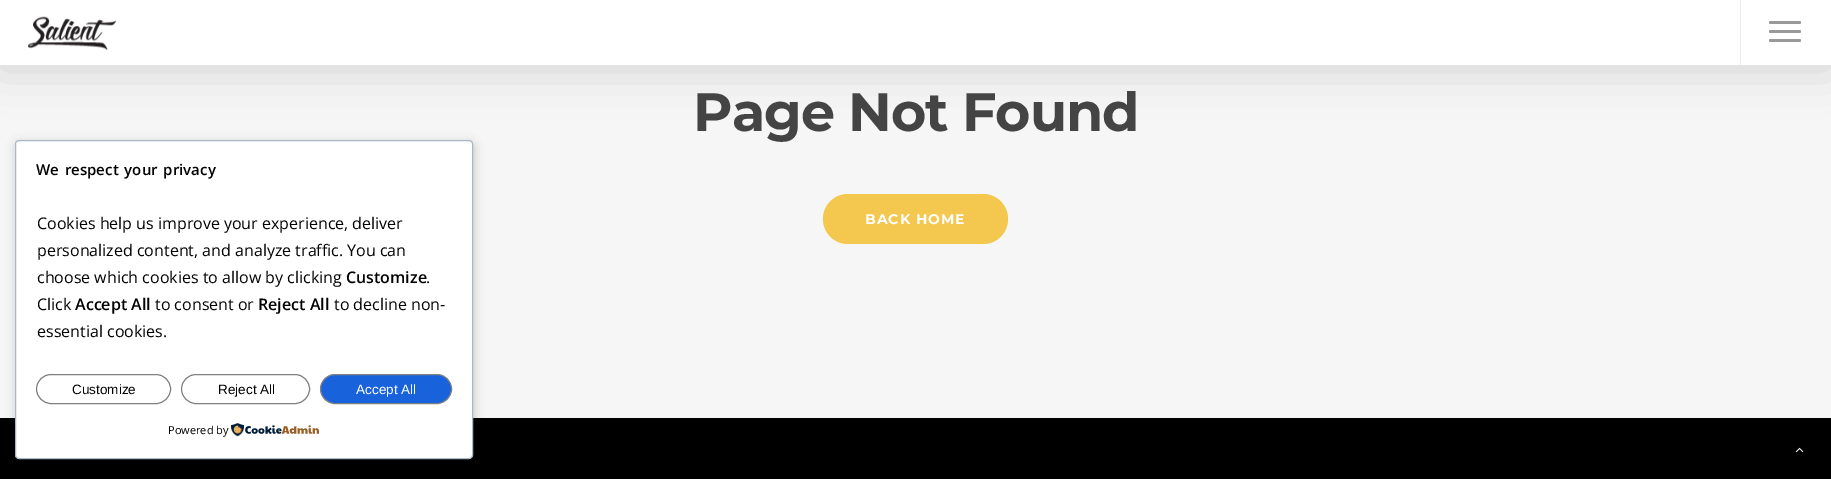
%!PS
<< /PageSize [1831 479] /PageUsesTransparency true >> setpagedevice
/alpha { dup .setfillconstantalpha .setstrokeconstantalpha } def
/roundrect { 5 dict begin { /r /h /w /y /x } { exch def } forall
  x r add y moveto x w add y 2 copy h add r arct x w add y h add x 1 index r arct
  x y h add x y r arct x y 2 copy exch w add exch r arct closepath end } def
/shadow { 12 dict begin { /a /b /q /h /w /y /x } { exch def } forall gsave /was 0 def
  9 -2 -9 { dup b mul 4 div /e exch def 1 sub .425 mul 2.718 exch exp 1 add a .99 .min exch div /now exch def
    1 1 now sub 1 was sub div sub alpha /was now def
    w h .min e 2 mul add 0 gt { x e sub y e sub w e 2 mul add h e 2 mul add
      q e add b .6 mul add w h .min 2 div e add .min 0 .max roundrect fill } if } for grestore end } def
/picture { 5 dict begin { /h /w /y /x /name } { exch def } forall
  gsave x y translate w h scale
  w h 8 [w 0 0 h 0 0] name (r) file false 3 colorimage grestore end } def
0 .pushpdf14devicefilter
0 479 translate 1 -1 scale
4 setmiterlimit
0 setgray
0 0 1831 479 rectfill
0.965 setgray
0 65 1831 353 rectfill
0 setgray
0 3 1831 65 0 22.5 0.15 shadow
1 setgray
0 0 1831 65 rectfill
(img1.rgb) 28 16 88 34 picture
0.929 setgray
1740 0 1 65 rectfill
0.6 setgray
1769 21 32 3 1.5 roundrect fill
1769 39 32 3 1.5 roundrect fill
1769 30 32 3 1.5 roundrect fill
0 setgray
16 143 458 319 4 5 0.2 shadow
1 setgray
15.5 140.5 457 318 3.5 roundrect gsave fill grestore
0.671 0.722 0.765 setrgbcolor
stroke
/OpenSans-SemiBold [15 0 0 -15 0 0] selectfont
0 setgray
36 175 moveto 2 0 32 (We respect your privacy) widthshow
/OpenSans-Regular [16 0 0 -16 0 0] selectfont
37 229 moveto (Cookies help us improve your experience, deliver) show
37 256 moveto (personalized content, and analyze traffic. You can) show
37 283 moveto (choose which cookies to allow by clicking) show
/OpenSans-SemiBold [16 0 0 -16 0 0] selectfont
346 283 moveto (Customize) show
/OpenSans-Regular [16 0 0 -16 0 0] selectfont
426 283 moveto (.) show
37 310 moveto (Click) show
/OpenSans-SemiBold [16 0 0 -16 0 0] selectfont
75 310 moveto (Accept All) show
/OpenSans-Regular [16 0 0 -16 0 0] selectfont
155 310 moveto (to consent or) show
/OpenSans-SemiBold [16 0 0 -16 0 0] selectfont
258 310 moveto (Reject All) show
/OpenSans-Regular [16 0 0 -16 0 0] selectfont
334 310 moveto (to decline non-) show
37 337 moveto (essential cookies.) show
0.502 setgray
36.5 374.5 134 29 14.5 roundrect stroke
/LiberationSans-Regular [13.5 0 0 -13.5 0 0] selectfont
0 setgray
72 394 moveto (Customize) show
0.502 setgray
181.5 374.5 128 29 14.5 roundrect stroke
0 setgray
218 394 moveto (Reject All) show
0.094 0.388 0.863 setrgbcolor
320.5 374.5 131 29 14.5 roundrect gsave fill grestore
0.502 setgray
stroke
1 setgray
356 394 moveto (Accept All) show
/OpenSans-Regular [11 0 0 -11 0 0] selectfont
0 setgray
168 434 moveto (Powered by) show
(img2.rgb) 231 423 88 14 picture
/Montserrat-Thin [54 0 0 -54 0 0] selectfont
0.267 setgray
693 131 moveto -1 0 (Page Not Found) ashow
0.957 0.784 0.306 setrgbcolor
823 194 185 50 25 roundrect fill
/Montserrat-Thin [14 0 0 -14 0 0] selectfont
1 setgray
865 224 moveto 1 0 (BACK HOME) ashow
(img3.rgb) 1795 447 9 6 picture
.poppdf14devicefilter showpage
